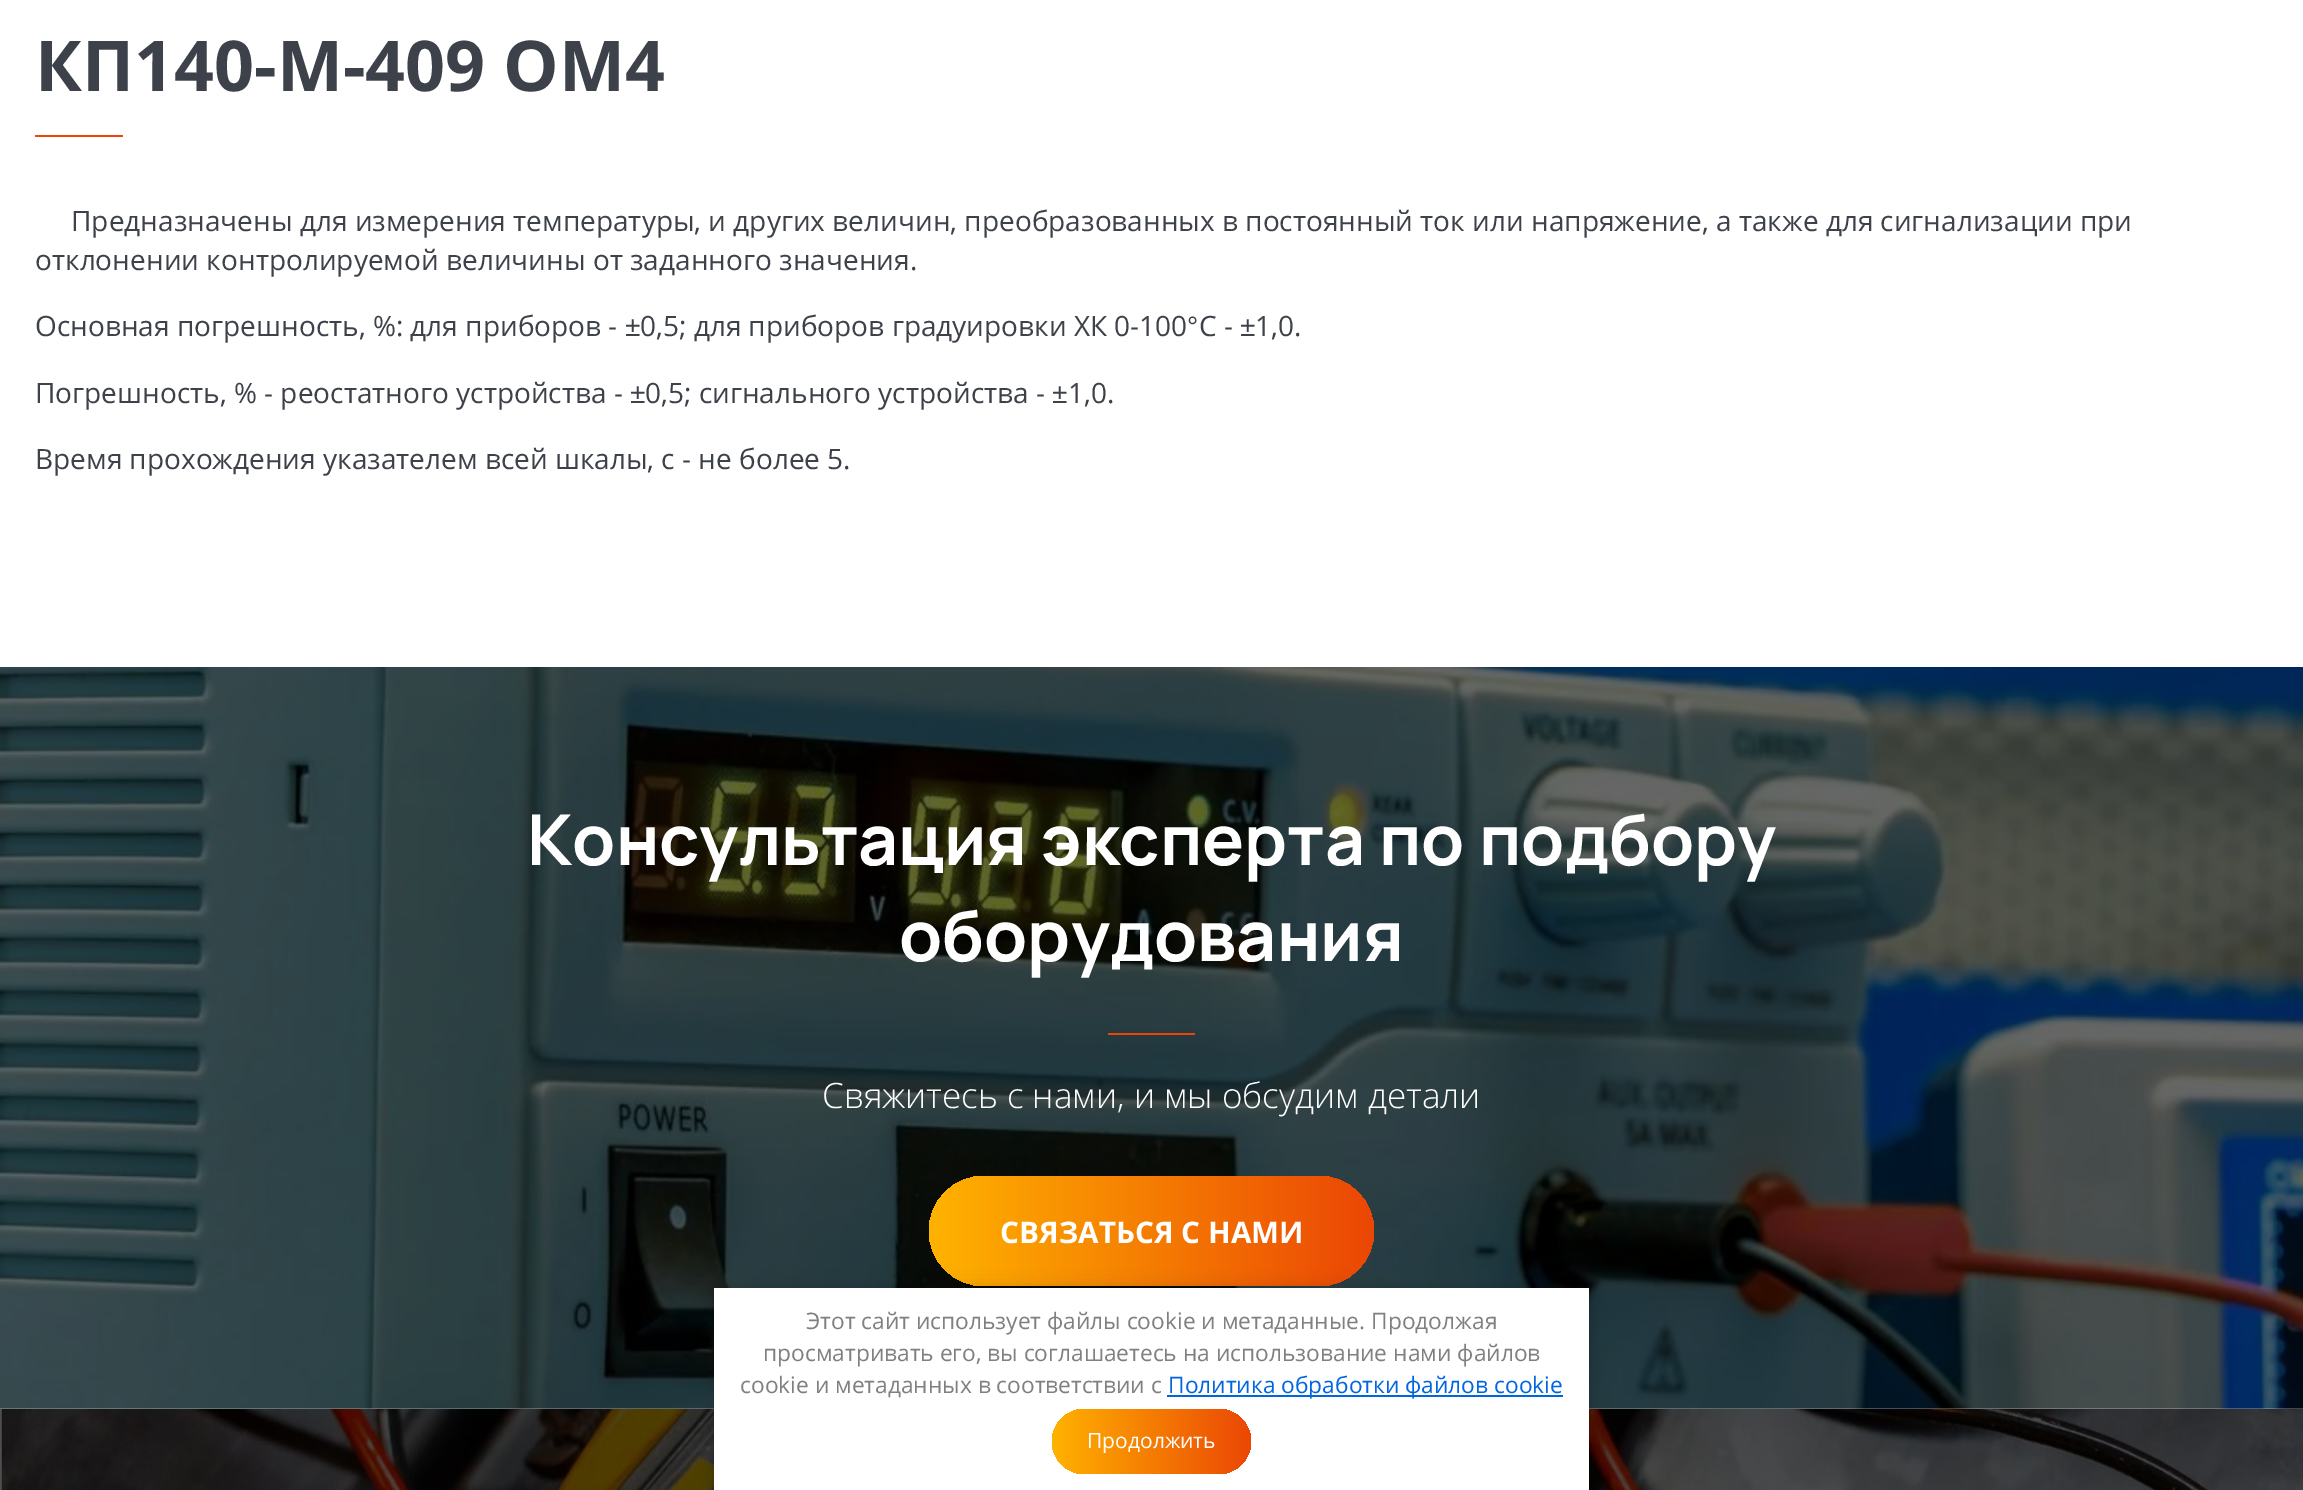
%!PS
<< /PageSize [2303 1490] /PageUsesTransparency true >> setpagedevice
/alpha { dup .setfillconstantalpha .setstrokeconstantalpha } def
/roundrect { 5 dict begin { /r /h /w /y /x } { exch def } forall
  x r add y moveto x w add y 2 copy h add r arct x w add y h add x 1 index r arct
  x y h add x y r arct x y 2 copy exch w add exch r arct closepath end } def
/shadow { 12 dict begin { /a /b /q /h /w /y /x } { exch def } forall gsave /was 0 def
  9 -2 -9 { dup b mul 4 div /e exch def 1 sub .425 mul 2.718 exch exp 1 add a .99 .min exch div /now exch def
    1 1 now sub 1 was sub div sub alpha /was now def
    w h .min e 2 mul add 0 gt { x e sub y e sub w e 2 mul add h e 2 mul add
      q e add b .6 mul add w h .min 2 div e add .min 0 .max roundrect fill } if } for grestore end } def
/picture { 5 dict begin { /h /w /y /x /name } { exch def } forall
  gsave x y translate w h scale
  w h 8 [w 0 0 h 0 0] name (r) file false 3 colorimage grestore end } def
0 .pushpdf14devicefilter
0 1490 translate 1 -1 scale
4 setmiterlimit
1 setgray
0 0 2303 1490 rectfill
/OpenSans-Bold [70 0 0 -70 0 0] selectfont
0.239 0.255 0.286 setrgbcolor
35 91 moveto (КП140-М-409 ОМ4) show
0.922 0.275 0.02 setrgbcolor
35 135 88 2 1 roundrect fill
/OpenSans-Regular [28 0 0 -28 0 0] selectfont
0.239 0.255 0.286 setrgbcolor
71 231 moveto (Предназначены для измерения температуры, и других величин, преобразованных в постоянный ток или напряжение, а также для сигнализации при) show
35 270 moveto (отклонении контролируемой величины от заданного значения.) show
35 336 moveto (Основная погрешность, %: для приборов -) show
/LiberationSans-Regular [28 0 0 -28 0 0] selectfont
625 336 moveto (±) show
/OpenSans-Regular [28 0 0 -28 0 0] selectfont
640 336 moveto (0,5; для приборов градуировки ХК 0-100) show
/LiberationSans-Regular [28 0 0 -28 0 0] selectfont
1187 336 moveto (°) show
/OpenSans-Regular [28 0 0 -28 0 0] selectfont
1199 336 moveto (С -) show
/LiberationSans-Regular [28 0 0 -28 0 0] selectfont
1240 336 moveto (±) show
/OpenSans-Regular [28 0 0 -28 0 0] selectfont
1255 336 moveto (1,0.) show
35 403 moveto (Погрешность, % - реостатного устройства -) show
/LiberationSans-Regular [28 0 0 -28 0 0] selectfont
630 403 moveto (±) show
/OpenSans-Regular [28 0 0 -28 0 0] selectfont
645 403 moveto (0,5; сигнального устройства -) show
/LiberationSans-Regular [28 0 0 -28 0 0] selectfont
1052 403 moveto (±) show
/OpenSans-Regular [28 0 0 -28 0 0] selectfont
1068 403 moveto (1,0.) show
35 469 moveto (Время прохождения указателем всей шкалы, с - не более 5.) show
(img1.rgb) 0 667 2303 742 picture
/Manrope-ExtraLight [70 0 0 -70 0 0] selectfont
1 setgray
527 865 moveto (Консультация эксперта по подбору) show
899 961 moveto (оборудования) show
0.922 0.275 0.02 setrgbcolor
1108 1033 87 2 1 roundrect fill
/OpenSans-Light [35 0 0 -35 0 0] selectfont
1 setgray
822 1108 moveto (Свяжитесь с нами, и мы обсудим детали) show
gsave 929 1176 445 110 55 roundrect clip newpath
<< /ShadingType 2 /ColorSpace /DeviceRGB /Coords [929 1231 1374 1231] /Extend [true true] /Function << /FunctionType 2 /Domain [0 1] /C0 [1 0.702 0] /C1 [0.922 0.275 0.02] /N 1 >> >> shfill grestore
/OpenSans-Bold [29.75 0 0 -29.75 0 0] selectfont
1000 1243 moveto (СВЯЗАТЬСЯ С НАМИ) show
(img2.rgb) 0 1409 2303 81 picture
0 setgray
714 1290 875 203 0 9 0.2 shadow
1 setgray
714 1288 875 202 rectfill
/OpenSans-Regular [22.75 0 0 -22.75 0 0] selectfont
0.502 setgray
806 1329 moveto (Этот сайт использует файлы cookie и метаданные. Продолжая) show
763 1361 moveto (просматривать его, вы соглашаетесь на использование нами файлов) show
740 1393 moveto (cookie и метаданных в соответствии с) show
0 0.396 0.878 setrgbcolor
1167 1395 396 2 rectfill
1168 1393 moveto (Политика обработки файлов cookie) show
gsave 1052 1409 199 65 32.5 roundrect clip newpath
<< /ShadingType 2 /ColorSpace /DeviceRGB /Coords [1052 1441 1251 1441] /Extend [true true] /Function << /FunctionType 2 /Domain [0 1] /C0 [1 0.698 0] /C1 [0.922 0.278 0.02] /N 1 >> >> shfill grestore
/OpenSans-Regular [21 0 0 -21 0 0] selectfont
1 setgray
1087 1448 moveto (Продолжить) show
.poppdf14devicefilter showpage
